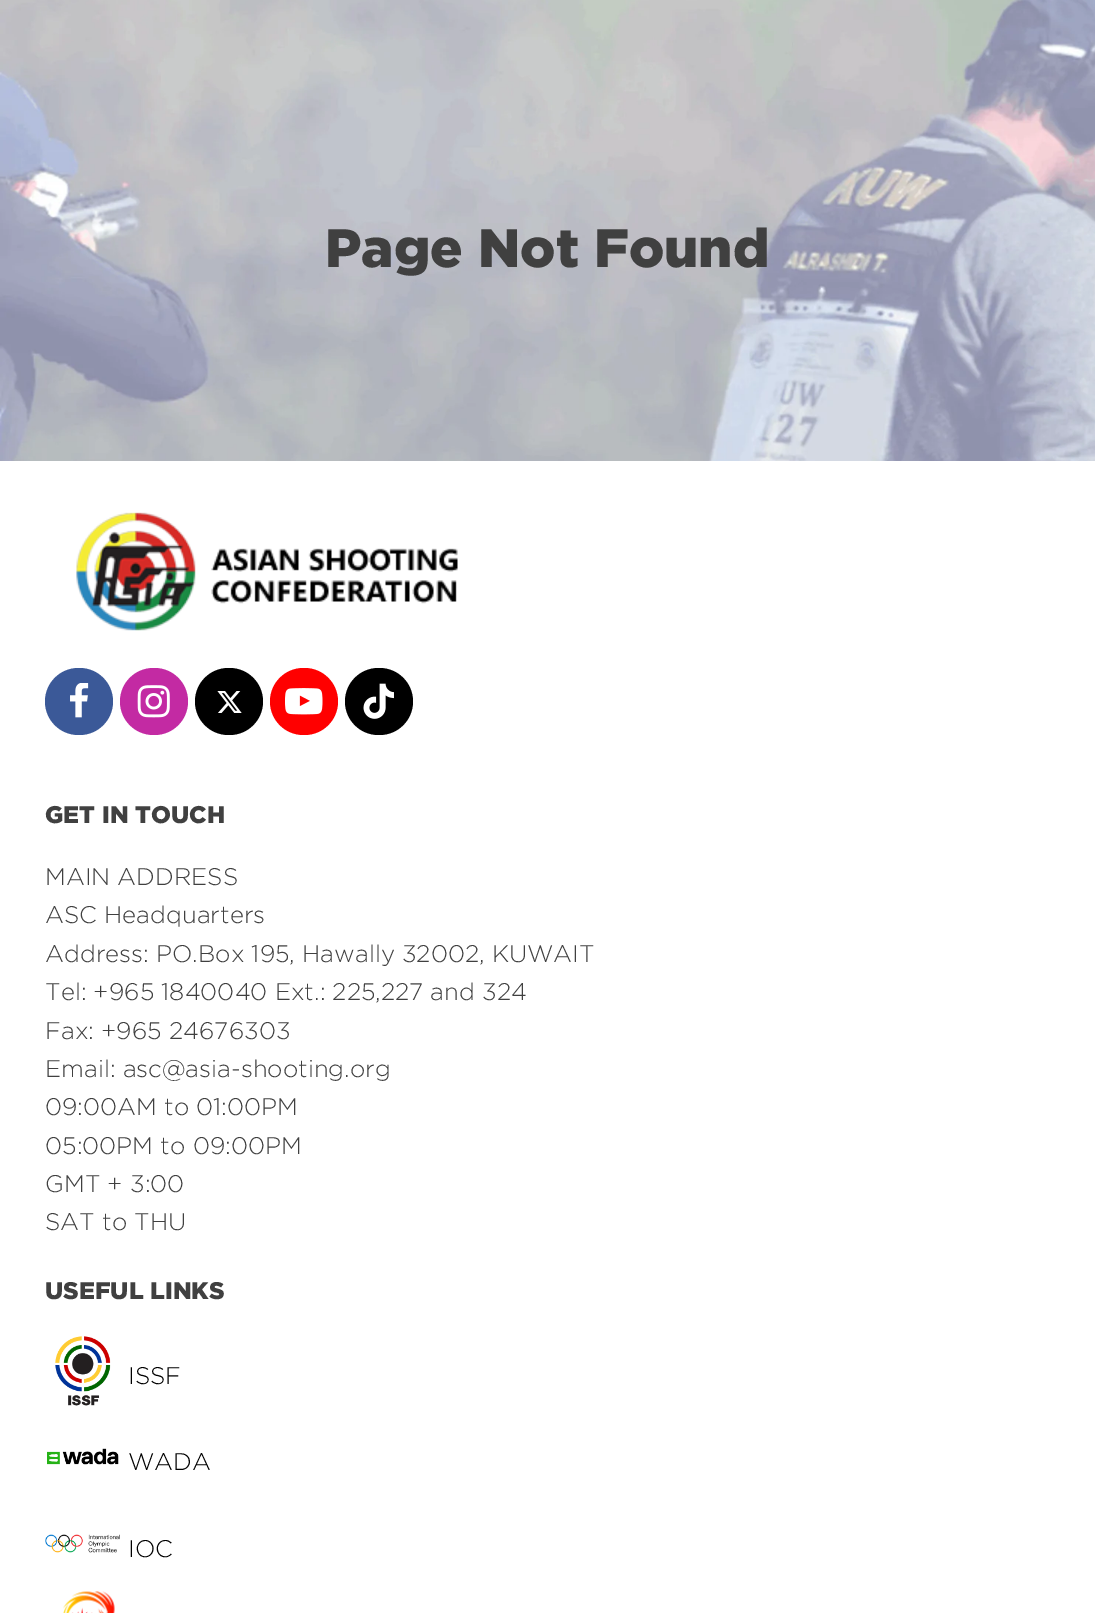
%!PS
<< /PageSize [1095 1613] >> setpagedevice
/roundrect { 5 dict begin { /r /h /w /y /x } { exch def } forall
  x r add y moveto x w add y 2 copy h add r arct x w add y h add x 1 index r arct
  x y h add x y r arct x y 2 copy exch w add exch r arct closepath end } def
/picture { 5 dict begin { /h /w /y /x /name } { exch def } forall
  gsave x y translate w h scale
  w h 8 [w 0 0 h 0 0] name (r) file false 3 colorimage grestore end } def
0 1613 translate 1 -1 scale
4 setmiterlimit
1 setgray
0 0 1095 1613 rectfill
(img1.rgb) 0 0 1095 461 picture
/Gotham-Black [54 0 0 -54 0 0] selectfont
0.251 setgray
325 267 moveto (Page Not Found) show
(img2.rgb) 76 512 382 119 picture
0.231 0.349 0.596 setrgbcolor
45 668 68 67 33.5 roundrect fill
(img3.rgb) 70 683 19 35 picture
0.765 0.165 0.639 setrgbcolor
120 668 68 67 33.5 roundrect fill
(img4.rgb) 137 685 33 33 picture
0 setgray
195 668 68 67 33.5 roundrect fill
(img5.rgb) 217 691 25 22 picture
1 0 0 setrgbcolor
270 668 68 67 33.5 roundrect fill
(img6.rgb) 285 688 38 27 picture
0 setgray
345 668 68 67 33.5 roundrect fill
(img7.rgb) 363 683 31 36 picture
/Gotham-Black [24 0 0 -24 0 0] selectfont
0.251 setgray
45 823 moveto (GET IN TOUCH) show
/Gotham-Light [24 0 0 -24 0 0] selectfont
45 885 moveto (MAIN ADDRESS) show
45 923 moveto (ASC Headquarters) show
45 962 moveto (Address: PO.Box 195, Hawally 32002, KUWAIT) show
45 1000 moveto (Tel: +965 1840040 Ext.: 225,227 and 324) show
45 1039 moveto (Fax: +965 24676303) show
45 1077 moveto (Email: asc@asia-shooting.org) show
45 1115 moveto (09:00AM to 01:00PM) show
45 1154 moveto (05:00PM to 09:00PM) show
45 1192 moveto (GMT + 3:00) show
45 1230 moveto (SAT to THU) show
/Gotham-Black [24 0 0 -24 0 0] selectfont
45 1299 moveto (USEFUL LINKS) show
(img8.rgb) 55 1336 56 70 picture
/Gotham-Light [24 0 0 -24 0 0] selectfont
0 setgray
128 1384 moveto (ISSF) show
(img9.rgb) 47 1448 72 17 picture
128 1470 moveto (WADA) show
(img10.rgb) 45 1534 75 19 picture
128 1557 moveto (IOC) show
(img11.rgb) 63 1591 52 22 picture
showpage
